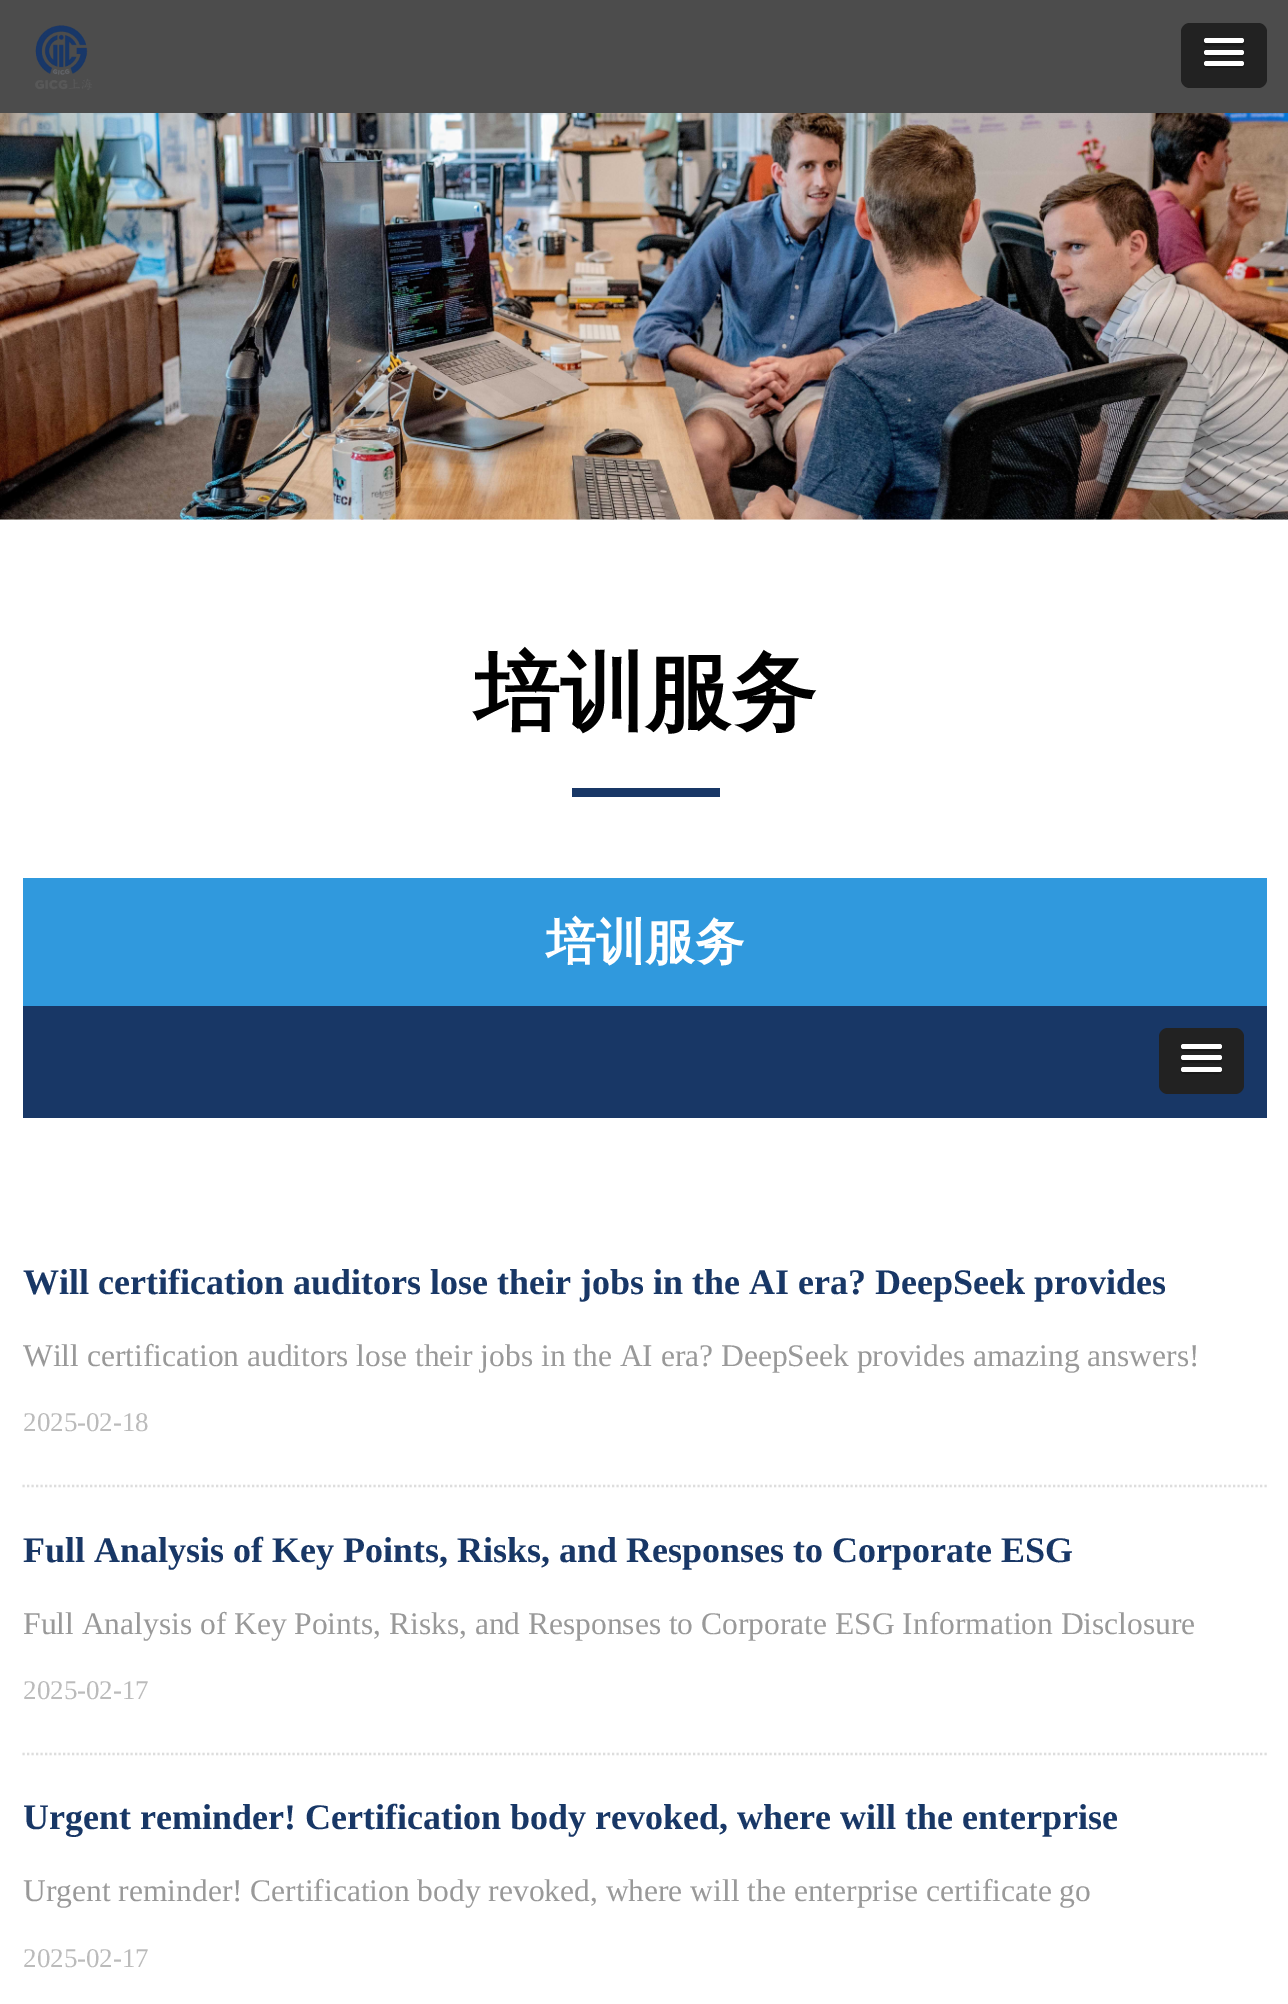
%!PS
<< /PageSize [1288 2004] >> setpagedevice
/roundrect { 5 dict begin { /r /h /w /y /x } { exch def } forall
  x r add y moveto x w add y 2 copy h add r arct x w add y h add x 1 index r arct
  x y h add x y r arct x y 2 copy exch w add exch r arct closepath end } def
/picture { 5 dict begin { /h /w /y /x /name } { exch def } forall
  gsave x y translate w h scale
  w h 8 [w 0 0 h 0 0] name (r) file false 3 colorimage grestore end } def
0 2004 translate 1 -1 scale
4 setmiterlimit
1 setgray
0 0 1288 2004 rectfill
0.298 setgray
0 0 1288 113 rectfill
(img1.rgb) 35 25 57 65 picture
0.133 setgray
1181 23 86 65 9 roundrect fill
0.102 setgray
newpath 1204 42 moveto 1201 47 1212 46 1212 46 curveto 1236 46 lineto 1236 46 1247 47 1244 42 curveto 1242 43 1206 43 1204 42 curveto closepath fill
1 setgray
1204 38 40 5 2.5 roundrect fill
0.102 setgray
newpath 1204 53 moveto 1202 58 1212 57 1212 57 curveto 1236 57 lineto 1236 57 1246 58 1244 53 curveto 1242 55 1206 55 1204 53 curveto closepath fill
1 setgray
1204 50 40 5 2.5 roundrect fill
0.102 setgray
newpath 1204 64 moveto 1202 69 1211 68 1212 68 curveto 1236 68 lineto 1237 68 1246 69 1244 64 curveto 1242 65 lineto 1206 65 lineto closepath fill
1 setgray
1204 61 40 5 2.5 roundrect fill
(img2.rgb) 0 113 1288 407 picture
/WenQuanYiZenHei-Bold [85.5 0 0 -85.5 0 0] selectfont
0 setgray
474 722 moveto (培训服务) show
0.094 0.216 0.4 setrgbcolor
572 788 148 9 rectfill
0.188 0.6 0.867 setrgbcolor
23 878 1244 128 rectfill
/WenQuanYiZenHei-Bold [49.5 0 0 -49.5 0 0] selectfont
1 setgray
546 959 moveto (培训服务) show
0.094 0.216 0.4 setrgbcolor
23 1006 1244 112 rectfill
0.133 setgray
1159 1028 85 66 9 roundrect fill
0.102 setgray
newpath 1181 1047 moveto 1178 1052 1189 1051 1190 1051 curveto 1214 1051 lineto 1214 1051 1225 1052 1222 1047 curveto 1221 1048 1220 1048 1220 1048 curveto 1184 1048 lineto 1183 1048 1182 1048 1181 1047 curveto closepath fill
1 setgray
1181 1044 41 5 2.5 roundrect fill
0.102 setgray
newpath 1182 1059 moveto 1181 1061 lineto 1182 1064 1188 1063 1190 1063 curveto 1214 1063 lineto 1215 1063 1221 1064 1222 1061 curveto 1221 1059 lineto 1220 1060 lineto 1183 1060 lineto closepath fill
1 setgray
1181 1055 41 5 2.5 roundrect fill
0.102 setgray
newpath 1182 1070 moveto 1177 1075 1189 1074 1190 1074 curveto 1214 1074 lineto 1214 1074 1226 1075 1221 1070 curveto 1220 1071 lineto 1183 1071 lineto closepath fill
1 setgray
1181 1067 41 5 2.5 roundrect fill
0.867 setgray
2.2 setlinewidth
[2.25 2.25] 0 setdash
newpath 22.5 1486 moveto 1267 1486 lineto stroke
/LiberationSerif-Bold [36 0 0 -36 0 0] selectfont
0.094 0.216 0.4 setrgbcolor
23 1294 moveto (Will certification auditors lose their jobs in the AI era? DeepSeek provides) show
/LiberationSerif-Regular [31.5 0 0 -31.5 0 0] selectfont
0.6 setgray
23 1366 moveto (Will certification auditors lose their jobs in the AI era? DeepSeek provides amazing answers!) show
/LiberationSerif-Regular [27 0 0 -27 0 0] selectfont
0.733 setgray
23 1431 moveto (2025-02-18) show
0.867 setgray
newpath 22.5 1754 moveto 1267 1754 lineto stroke
/LiberationSerif-Bold [36 0 0 -36 0 0] selectfont
0.094 0.216 0.4 setrgbcolor
23 1562 moveto (Full Analysis of Key Points, Risks, and Responses to Corporate ESG) show
/LiberationSerif-Regular [31.5 0 0 -31.5 0 0] selectfont
0.6 setgray
23 1634 moveto (Full Analysis of Key Points, Risks, and Responses to Corporate ESG Information Disclosure) show
/LiberationSerif-Regular [27 0 0 -27 0 0] selectfont
0.733 setgray
23 1699 moveto (2025-02-17) show
/LiberationSerif-Bold [36 0 0 -36 0 0] selectfont
0.094 0.216 0.4 setrgbcolor
23 1829 moveto (Urgent reminder! Certification body revoked, where will the enterprise) show
/LiberationSerif-Regular [31.5 0 0 -31.5 0 0] selectfont
0.6 setgray
23 1901 moveto (Urgent reminder! Certification body revoked, where will the enterprise certificate go) show
/LiberationSerif-Regular [27 0 0 -27 0 0] selectfont
0.733 setgray
23 1967 moveto (2025-02-17) show
showpage
